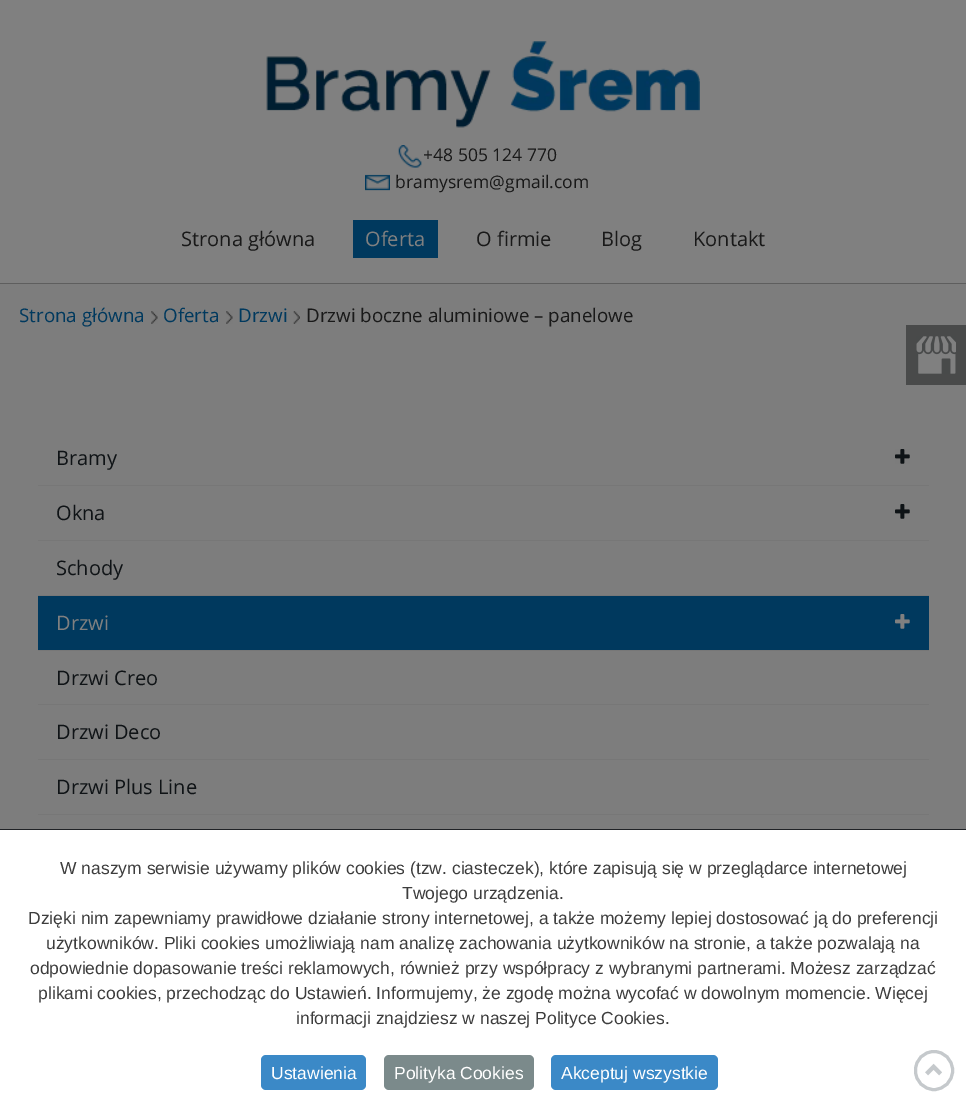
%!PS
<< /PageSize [966 1114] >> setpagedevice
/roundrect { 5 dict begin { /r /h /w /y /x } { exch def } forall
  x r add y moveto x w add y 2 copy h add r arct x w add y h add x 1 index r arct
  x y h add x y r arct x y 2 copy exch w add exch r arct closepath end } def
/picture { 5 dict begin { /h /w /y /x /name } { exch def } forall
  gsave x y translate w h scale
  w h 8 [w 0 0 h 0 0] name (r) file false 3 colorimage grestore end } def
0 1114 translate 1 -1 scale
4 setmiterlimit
1 setgray
0 0 966 1114 rectfill
gsave newpath 0 284 moveto 966 284 lineto 966 829 lineto 0 829 lineto closepath clip newpath
<< /ShadingType 2 /ColorSpace /DeviceRGB /Coords [483 0 483 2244] /Extend [true true] /Function << /FunctionType 2 /Domain [0 1] /C0 [0.486 0.486 0.486] /C1 [0.502 0.502 0.502] /N 1 >> >> shfill grestore
0.502 setgray
0 0 966 283 rectfill
0.369 setgray
0 283 966 1 rectfill
(img1.rgb) 266 41 434 87 picture
(img2.rgb) 398 145 24 23 picture
/OpenSans-Regular [17.5 0 0 -17.5 0 0] selectfont
0.098 setgray
423 161 moveto (+48 505 124 770) show
(img3.rgb) 365 174 25 17 picture
395 188 moveto (bramysrem@gmail.com) show
/OpenSans-Regular [20 0 0 -20 0 0] selectfont
181 246 moveto (Strona główna) show
0 0.224 0.369 setrgbcolor
353 220 85 38 rectfill
0.502 setgray
365 246 moveto (Oferta) show
0.098 setgray
476 246 moveto (O firmie) show
601 246 moveto (Blog) show
693 246 moveto (Kontakt) show
/OpenSans-Regular [18.75 0 0 -18.75 0 0] selectfont
0 0.224 0.369 setrgbcolor
19 322 moveto (Strona główna) show
(img4.rgb) 151 311 7 13 picture
163 322 moveto (Oferta) show
(img4.rgb) 226 311 7 13 picture
238 322 moveto (Drzwi) show
(img5.rgb) 293 311 7 13 picture
0.098 setgray
306 322 moveto (Drzwi boczne aluminiowe – panelowe) show
0.286 0.29 0.29 setrgbcolor
906 325 60 60 rectfill
(img6.rgb) 916 336 40 38 picture
0.467 setgray
38 485 891 1 rectfill
/OpenSans-Regular [20 0 0 -20 0 0] selectfont
0.059 0.075 0.086 setrgbcolor
56 465 moveto (Bramy) show
(img7.rgb) 895 449 15 15 picture
0.467 setgray
38 540 891 1 rectfill
0.059 0.075 0.086 setrgbcolor
56 520 moveto (Okna) show
(img8.rgb) 895 504 15 15 picture
0.467 setgray
38 595 891 1 rectfill
0.059 0.075 0.086 setrgbcolor
56 575 moveto (Schody) show
0 0.224 0.369 setrgbcolor
38 596 891 54 rectfill
0.467 setgray
38 650 891 1 rectfill
0.502 setgray
56 630 moveto (Drzwi) show
(img9.rgb) 895 614 15 15 picture
0.467 setgray
38 704 891 1 rectfill
0.059 0.075 0.086 setrgbcolor
56 685 moveto (Drzwi Creo) show
0.467 setgray
38 759 891 1 rectfill
0.059 0.075 0.086 setrgbcolor
56 739 moveto (Drzwi Deco) show
0.467 setgray
38 814 891 1 rectfill
0.059 0.075 0.086 setrgbcolor
56 794 moveto (Drzwi Plus Line) show
0.773 0.788 0.8 setrgbcolor
3 setlinewidth
915.5 1051.5 37 38 18.5 roundrect stroke
(img10.rgb) 925 1063 17 13 picture
0.125 0.133 0.149 setrgbcolor
0 829 966 1 rectfill
/LiberationSans-Regular [17.5 0 0 -17.5 0 0] selectfont
0.239 setgray
60 874 moveto (W naszym serwisie używamy plików cookies \(tzw. ciasteczek\), które zapisują się w przeglądarce internetowej) show
402 899 moveto (Twojego urządzenia.) show
28 924 moveto (Dzięki nim zapewniamy prawidłowe działanie strony internetowej, a także możemy lepiej dostosować ją do preferencji) show
46 949 moveto (użytkowników. Pliki cookies umożliwiają nam analizę zachowania użytkowników na stronie, a także pozwalają na) show
30 974 moveto (odpowiednie dopasowanie treści reklamowych, również przy współpracy z wybranymi partnerami. Możesz zarządzać) show
38 999 moveto (plikami cookies, przechodząc do Ustawień. Informujemy, że zgodę można wycofać w dowolnym momencie. Więcej) show
296 1024 moveto (informacji znajdziesz w naszej Polityce Cookies.) show
0.231 0.537 0.78 setrgbcolor
261 1055 105 35 5 roundrect fill
1 setgray
271 1079 moveto (Ustawienia) show
0.482 0.541 0.545 setrgbcolor
384 1055 150 35 5 roundrect fill
1 setgray
394 1079 moveto (Polityka Cookies) show
0.231 0.537 0.78 setrgbcolor
551 1055 167 35 5 roundrect fill
1 setgray
561 1079 moveto (Akceptuj wszystkie) show
showpage
